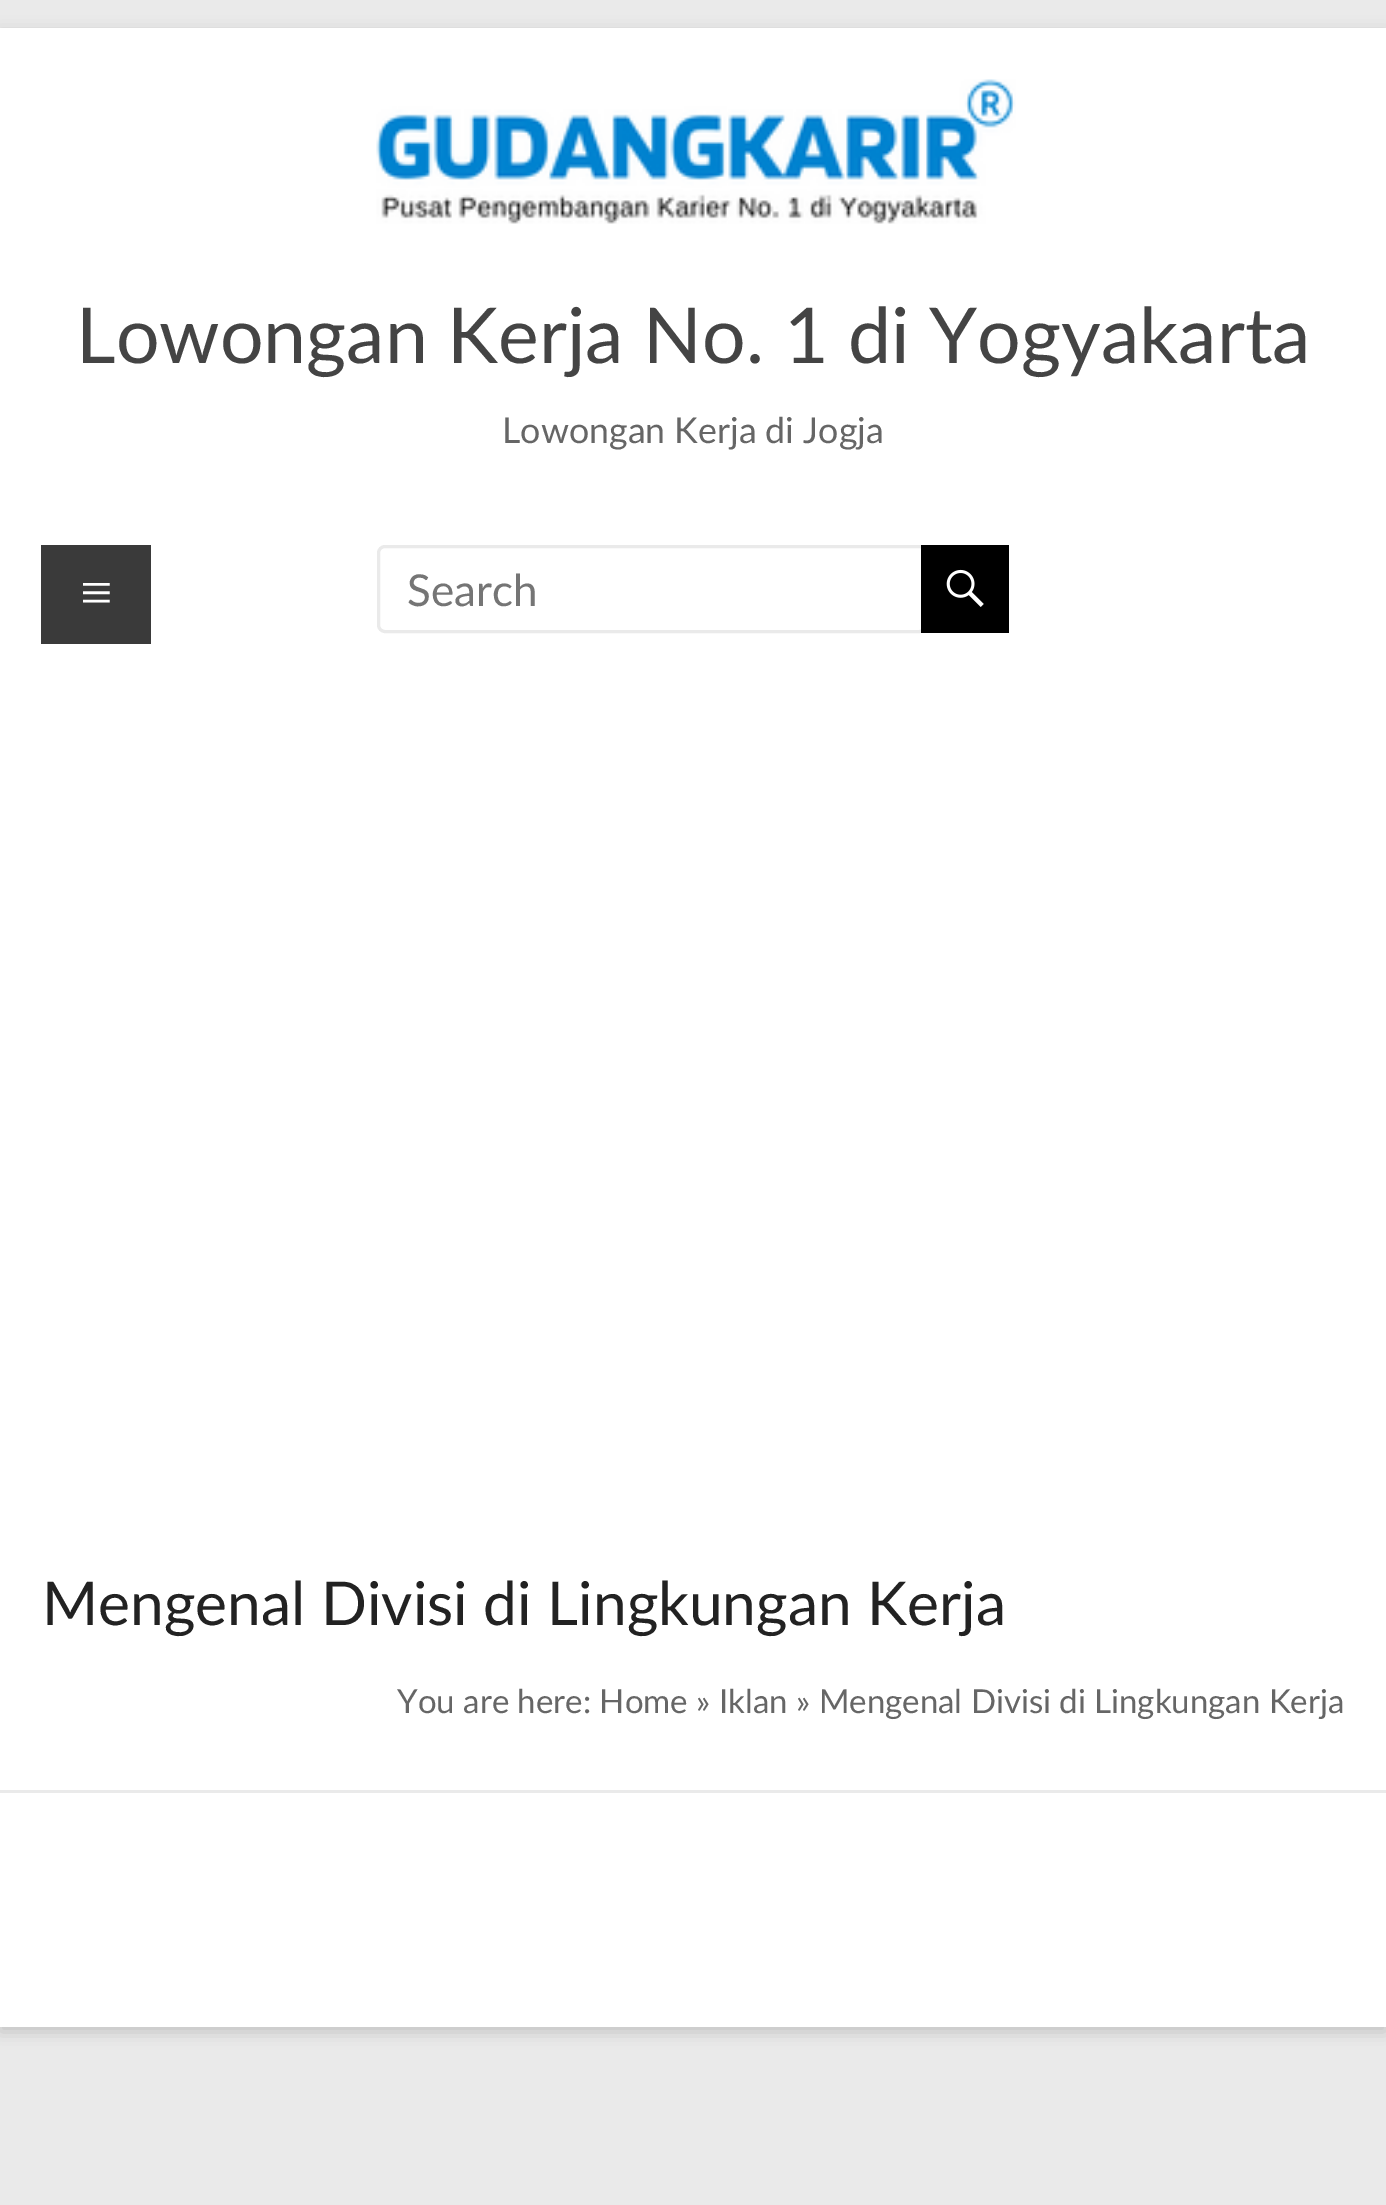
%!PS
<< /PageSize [1386 2205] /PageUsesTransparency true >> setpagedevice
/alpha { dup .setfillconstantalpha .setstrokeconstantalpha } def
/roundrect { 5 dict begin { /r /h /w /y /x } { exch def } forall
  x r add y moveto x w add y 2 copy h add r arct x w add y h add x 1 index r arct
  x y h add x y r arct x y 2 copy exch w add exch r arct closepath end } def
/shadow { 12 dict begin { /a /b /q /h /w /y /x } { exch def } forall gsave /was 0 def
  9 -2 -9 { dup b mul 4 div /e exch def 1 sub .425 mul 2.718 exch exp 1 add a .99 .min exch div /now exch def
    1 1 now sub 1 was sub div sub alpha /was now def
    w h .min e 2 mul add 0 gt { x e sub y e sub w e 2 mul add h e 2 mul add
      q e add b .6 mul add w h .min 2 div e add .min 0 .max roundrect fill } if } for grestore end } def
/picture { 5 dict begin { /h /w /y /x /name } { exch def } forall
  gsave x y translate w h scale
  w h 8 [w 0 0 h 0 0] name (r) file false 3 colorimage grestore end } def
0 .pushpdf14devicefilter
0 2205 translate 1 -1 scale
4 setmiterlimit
0.918 setgray
0 0 1386 2205 rectfill
0.392 setgray
0 33 1386 1999 0 8 0.3 shadow
1 setgray
0 28 1386 1999 rectfill
(img1.rgb) 376 79 640 145 picture
/Lato-Regular [77 0 0 -77 0 0] selectfont
0.267 setgray
76 363 moveto (Lowongan Kerja No. 1 di Yogyakarta) show
/Lato-Regular [35.75 0 0 -35.75 0 0] selectfont
0.4 setgray
502 443 moveto (Lowongan Kerja di Jogja) show
0.227 setgray
41 545 110 99 rectfill
/LiberationSerif-Regular [58 0 0 -58 0 0] selectfont
1 setgray
80 612 moveto (≡) show
0.918 setgray
3 setlinewidth
378.5 546.5 547 85 6.5 roundrect stroke
/Lato-Regular [44 0 0 -44 0 0] selectfont
0.459 setgray
407 606 moveto (Search) show
0 setgray
921 545 88 88 rectfill
(img2.rgb) 946 569 38 38 picture
0.918 setgray
0 1790 1386 3 rectfill
/Lato-Regular [60.5 0 0 -60.5 0 0] selectfont
0.133 setgray
42 1625 moveto (Mengenal Divisi di Lingkungan Kerja) show
/Lato-Regular [33 0 0 -33 0 0] selectfont
0.4 setgray
397 1713 moveto (You are here: Home » Iklan » Mengenal Divisi di Lingkungan Kerja) show
.poppdf14devicefilter showpage
